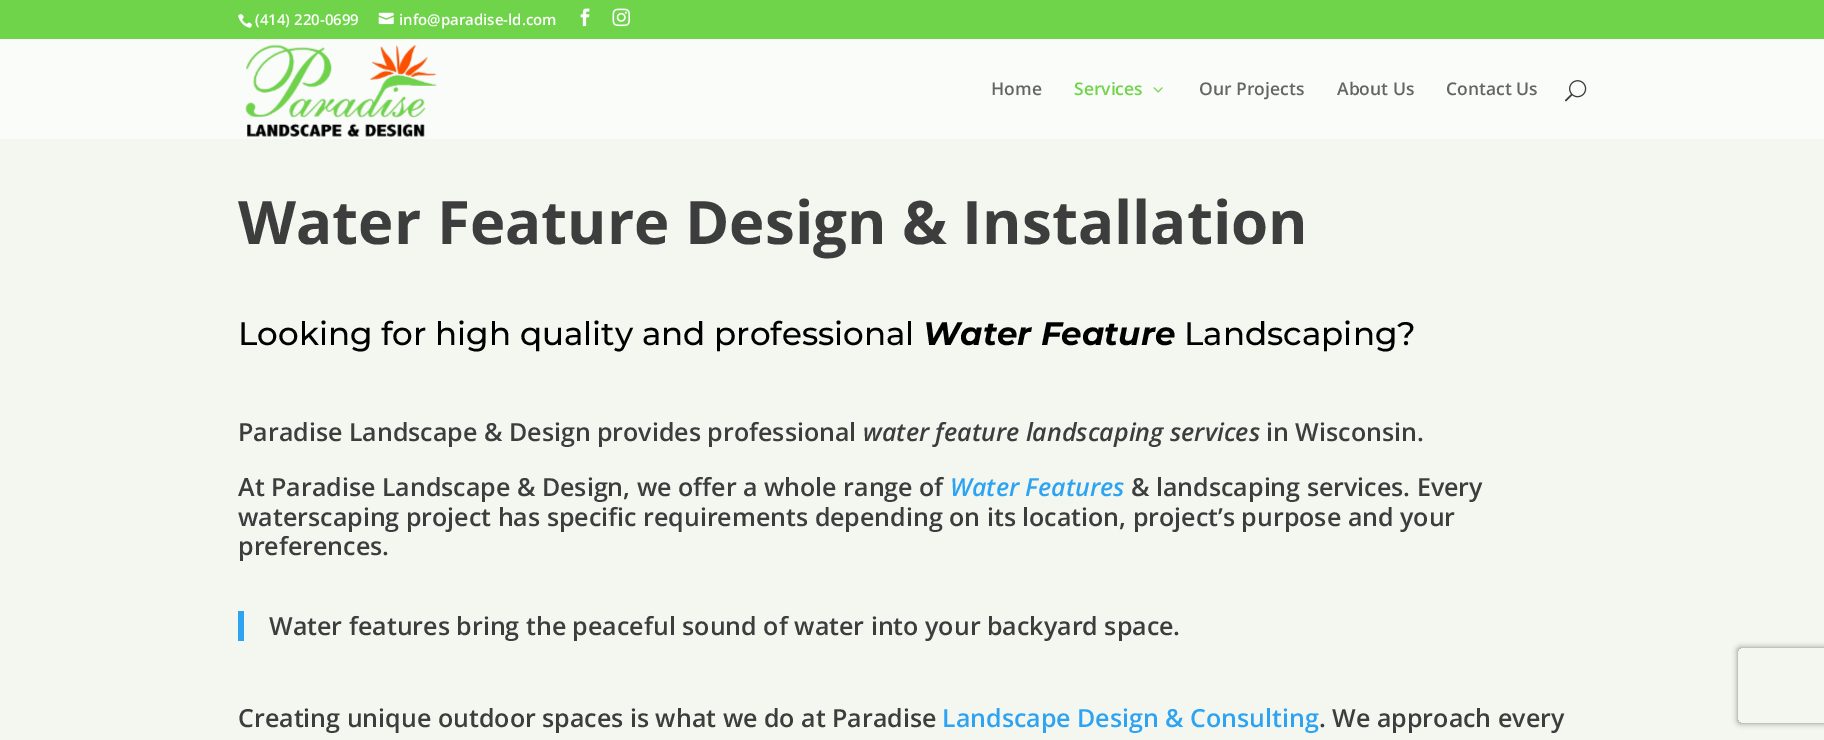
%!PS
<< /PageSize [1824 740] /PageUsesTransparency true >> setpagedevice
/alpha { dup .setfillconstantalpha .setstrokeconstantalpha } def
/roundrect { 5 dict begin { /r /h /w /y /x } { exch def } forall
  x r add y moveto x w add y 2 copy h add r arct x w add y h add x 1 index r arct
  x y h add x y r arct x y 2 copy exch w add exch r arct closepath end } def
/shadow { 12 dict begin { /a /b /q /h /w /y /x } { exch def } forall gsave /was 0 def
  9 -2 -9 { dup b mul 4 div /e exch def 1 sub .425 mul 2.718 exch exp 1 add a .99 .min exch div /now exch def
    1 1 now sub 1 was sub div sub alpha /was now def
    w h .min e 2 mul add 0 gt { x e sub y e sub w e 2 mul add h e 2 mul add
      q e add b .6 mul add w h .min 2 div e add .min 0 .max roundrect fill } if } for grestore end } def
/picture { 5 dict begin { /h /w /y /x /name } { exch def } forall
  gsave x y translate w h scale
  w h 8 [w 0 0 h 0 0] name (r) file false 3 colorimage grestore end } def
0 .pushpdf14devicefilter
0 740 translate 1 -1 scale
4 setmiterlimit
0.953 0.969 0.941 setrgbcolor
0 0 1824 740 rectfill
0.439 0.831 0.294 setrgbcolor
0 0 1824 39 rectfill
(img1.rgb) 238 14 14 14 picture
/OpenSans-SemiBold [15 0 0 -15 0 0] selectfont
1 setgray
255 25 moveto (\(414\) 220-0699) show
(img2.rgb) 378 12 16 13 picture
399 25 moveto (info@paradise-ld.com) show
(img3.rgb) 580 8 10 19 picture
(img4.rgb) 612 8 18 19 picture
0.98 0.988 0.976 setrgbcolor
0 39 1824 100 rectfill
(img5.rgb) 245 44 192 93 picture
/OpenSans-SemiBold [17.5 0 0 -17.5 0 0] selectfont
0.392 0.396 0.392 setrgbcolor
991 95 moveto (Home) show
0.439 0.831 0.294 setrgbcolor
1074 95 moveto (Services) show
(img6.rgb) 1153 87 10 6 picture
0.392 0.396 0.392 setrgbcolor
1199 95 moveto (Our Projects) show
1337 95 moveto (About Us) show
1446 95 moveto (Contact Us) show
(img7.rgb) 1565 80 22 22 picture
/OpenSans-Bold [60 0 0 -60 0 0] selectfont
0.239 setgray
238 244 moveto (Water Feature Design & Installation) show
/Montserrat-Thin [32.5 0 0 -32.5 0 0] selectfont
0 setgray
238 345 moveto (Looking for high quality and professional) show
/Montserrat-ThinItalic [32.5 0 0 -32.5 0 0] selectfont
923 345 moveto (Water Feature) show
/Montserrat-Thin [32.5 0 0 -32.5 0 0] selectfont
1184 345 moveto (Landscaping?) show
/OpenSans-SemiBold [25 0 0 -25 0 0] selectfont
0.239 setgray
238 441 moveto (Paradise Landscape & Design provides professional) show
/OpenSans-SemiBoldItalic [25 0 0 -25 0 0] selectfont
863 441 moveto (water feature landscaping services) show
/OpenSans-SemiBold [25 0 0 -25 0 0] selectfont
1266 441 moveto (in Wisconsin.) show
238 496 moveto (At Paradise Landscape & Design, we offer a whole range of) show
/OpenSans-SemiBoldItalic [25 0 0 -25 0 0] selectfont
0.18 0.639 0.949 setrgbcolor
950 496 moveto (Water Features) show
/OpenSans-SemiBold [25 0 0 -25 0 0] selectfont
0.239 setgray
1131 496 moveto (& landscaping services. Every) show
238 526 moveto (waterscaping project has specific requirements depending on its location, project’s purpose and your) show
238 555 moveto (preferences.) show
0.18 0.639 0.949 setrgbcolor
238 611 6 30 rectfill
0.239 setgray
269 635 moveto (Water features bring the peaceful sound of water into your backyard space.) show
238 727 moveto (Creating unique outdoor spaces is what we do at Paradise) show
0.18 0.639 0.949 setrgbcolor
942 727 moveto (Landscape Design & Consulting) show
0.239 setgray
1319 727 moveto (. We approach every) show
gsave
newpath 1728 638 moveto 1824 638 lineto 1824 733 lineto 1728 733 lineto closepath 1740.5 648 moveto 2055.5 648 lineto 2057 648 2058 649 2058 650.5 curveto 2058 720.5 lineto 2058 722 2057 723 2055.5 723 curveto 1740.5 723 lineto 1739 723 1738 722 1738 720.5 curveto 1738 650.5 lineto 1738 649 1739 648 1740.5 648 curveto closepath eoclip newpath
0.502 setgray
1738 648 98 75 2.5 3 1 shadow
grestore
.poppdf14devicefilter showpage
